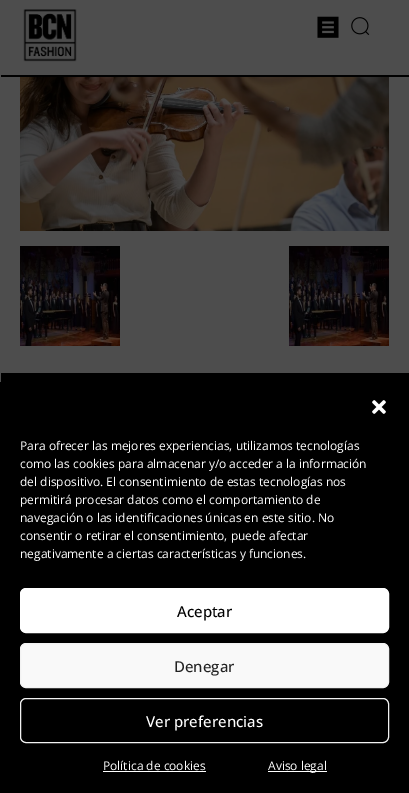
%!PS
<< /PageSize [409 793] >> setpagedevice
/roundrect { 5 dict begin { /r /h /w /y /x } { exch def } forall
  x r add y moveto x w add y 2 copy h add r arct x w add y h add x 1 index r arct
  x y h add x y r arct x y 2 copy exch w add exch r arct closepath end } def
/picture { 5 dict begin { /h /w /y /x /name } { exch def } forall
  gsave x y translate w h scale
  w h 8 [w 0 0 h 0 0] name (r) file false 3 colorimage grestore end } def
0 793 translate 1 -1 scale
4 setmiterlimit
0.302 setgray
0 0 409 793 rectfill
(img1.rgb) 23 9 54 53 picture
(img2.rgb) 317 16 22 22 picture
(img3.rgb) 351 17 19 18 picture
0 setgray
1 75 408 2 rectfill
(img4.rgb) 20 77 369 154 picture
(img5.rgb) 20 246 100 100 picture
(img5.rgb) 289 246 100 100 picture
1 373 408 9 rectfill
0 382 409 411 rectfill
(img6.rgb) 372 400 14 14 picture
/OpenSans-Regular [12 0 0 -12 0 0] selectfont
1 setgray
20 450 moveto (Para ofrecer las mejores experiencias, utilizamos tecnologías) show
20 468 moveto (como las cookies para almacenar y/o acceder a la información) show
20 486 moveto (del dispositivo. El consentimiento de estas tecnologías nos) show
20 504 moveto (permitirá procesar datos como el comportamiento de) show
20 522 moveto (navegación o las identificaciones únicas en este sitio. No) show
20 540 moveto (consentir o retirar el consentimiento, puede afectar) show
20 558 moveto (negativamente a ciertas características y funciones.) show
20.5 588.5 368 44 5.5 roundrect gsave fill grestore
stroke
/OpenSans-Medium [15 0 0 -15 0 0] selectfont
0 setgray
177 617 moveto (Aceptar) show
0.976 setgray
20.5 643.5 368 44 5.5 roundrect gsave fill grestore
0.949 setgray
stroke
0.133 setgray
174 672 moveto (Denegar) show
0.949 setgray
20.5 698.5 368 44 5.5 roundrect stroke
1 setgray
146 727 moveto (Ver preferencias) show
/OpenSans-Regular [12 0 0 -12 0 0] selectfont
103 770 moveto (Política de cookies) show
103 771 103 1 rectfill
268 771 59 1 rectfill
268 770 moveto (Aviso legal) show
showpage
